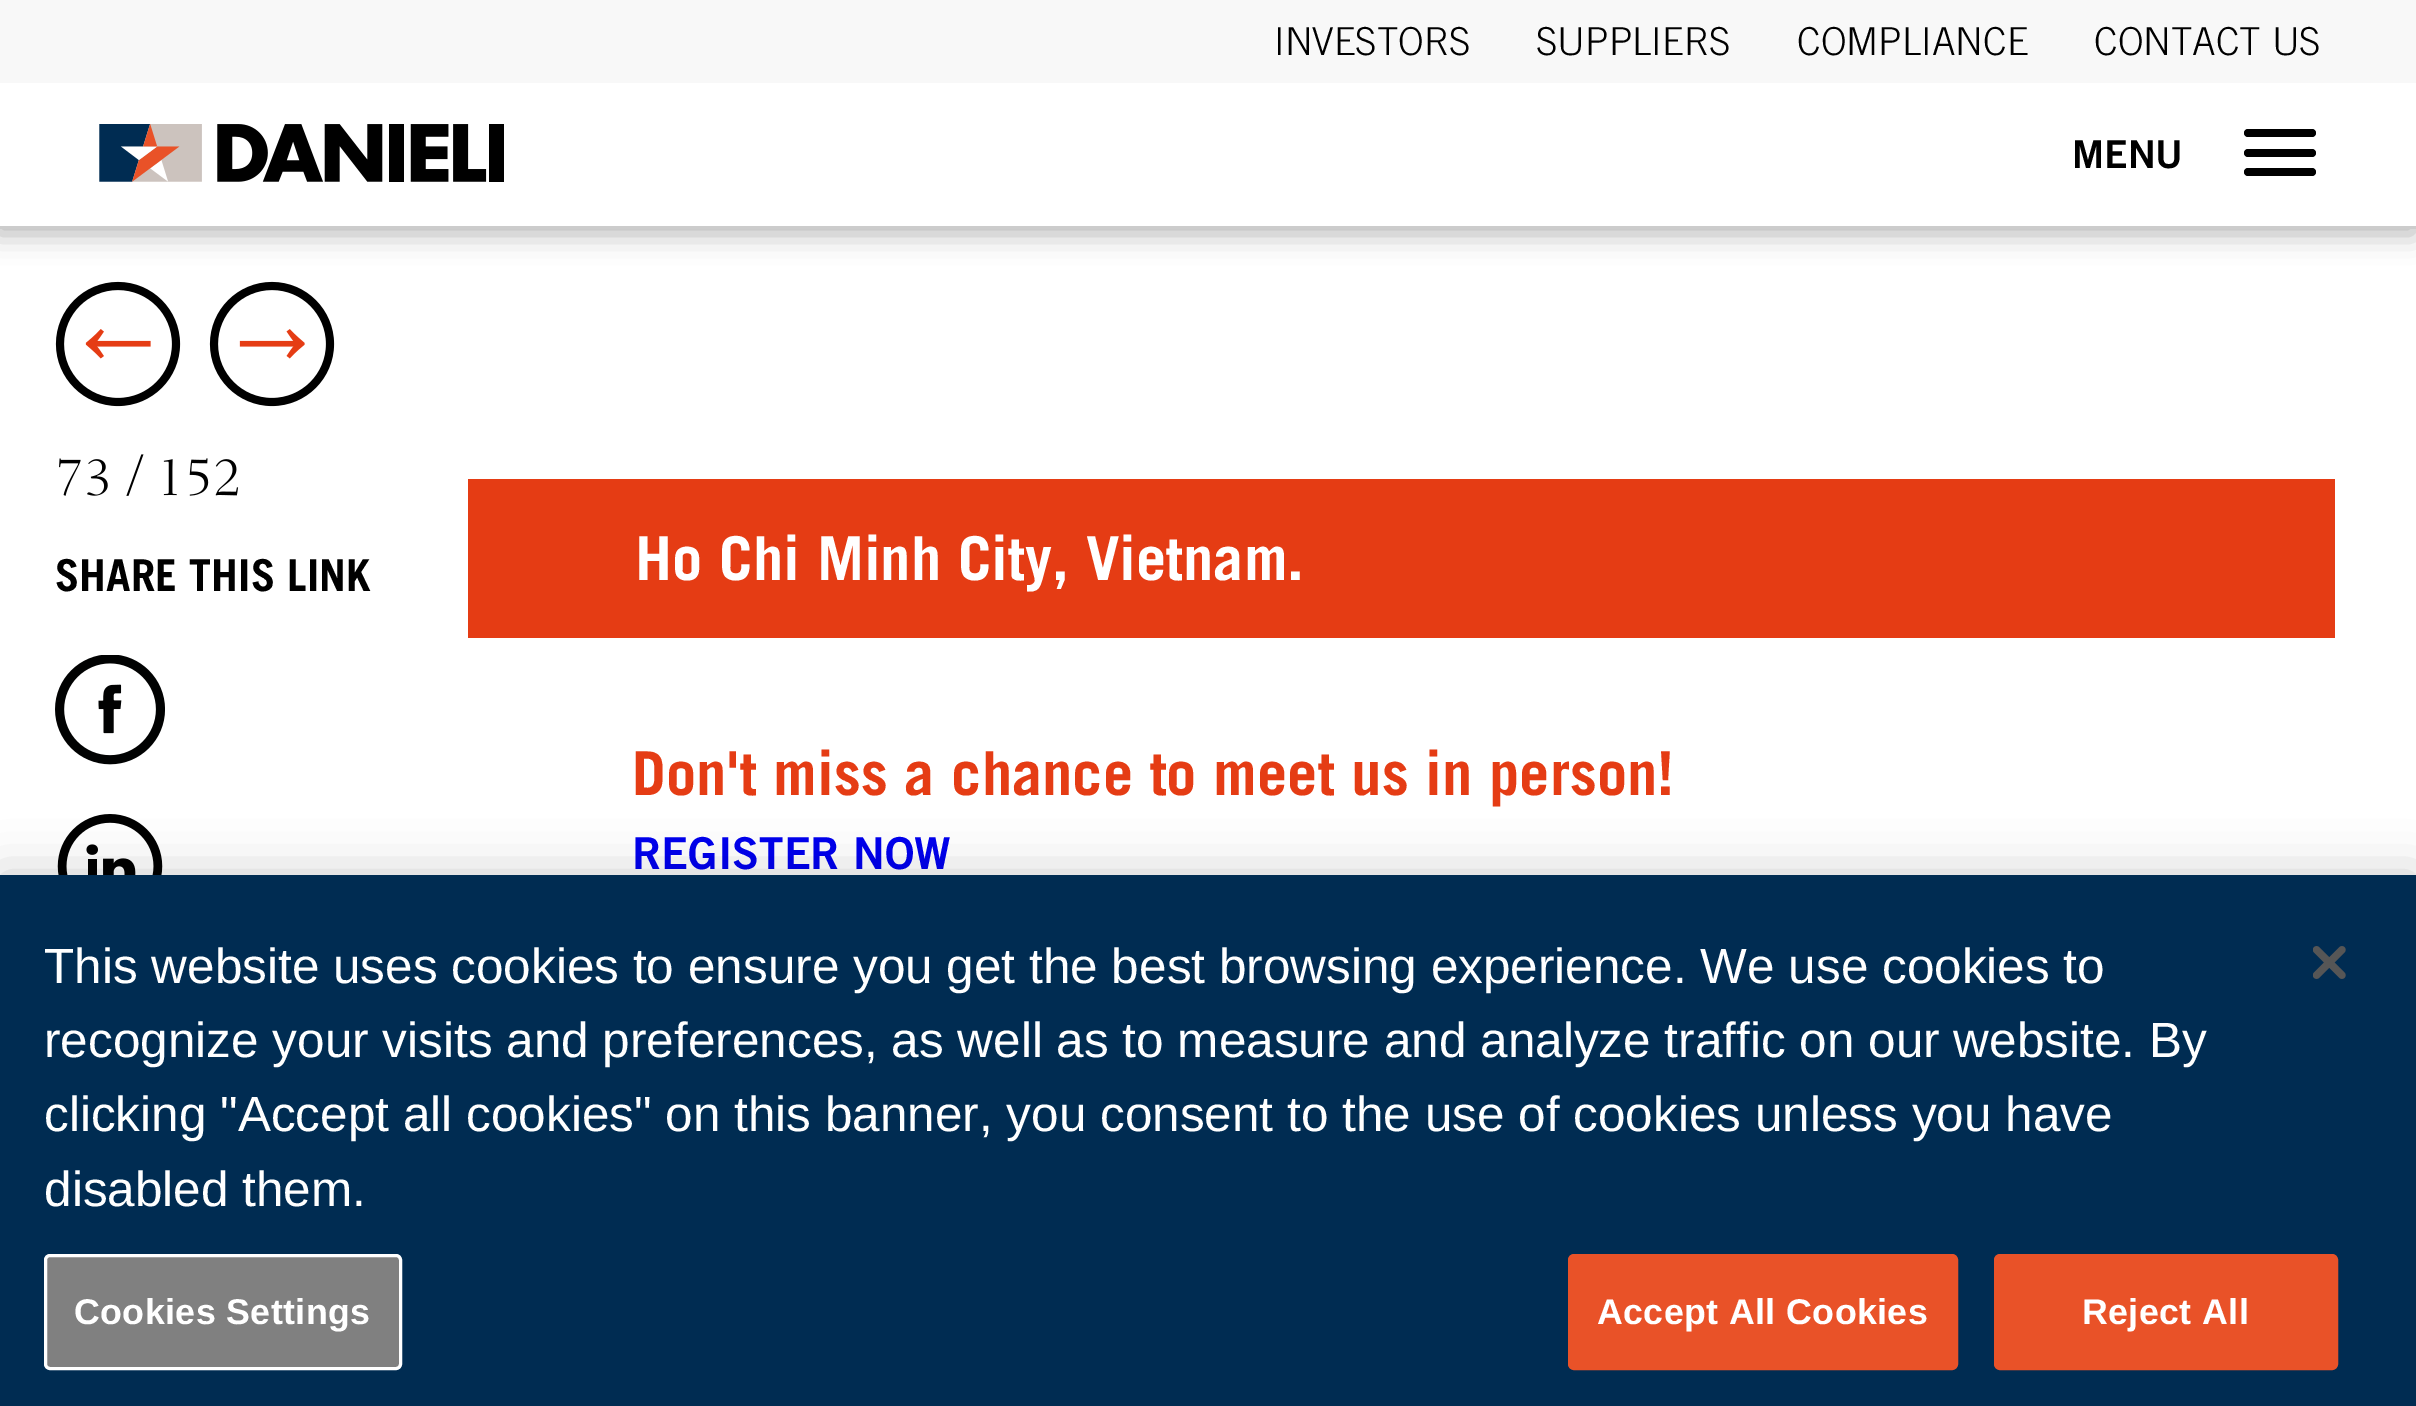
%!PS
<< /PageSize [2416 1406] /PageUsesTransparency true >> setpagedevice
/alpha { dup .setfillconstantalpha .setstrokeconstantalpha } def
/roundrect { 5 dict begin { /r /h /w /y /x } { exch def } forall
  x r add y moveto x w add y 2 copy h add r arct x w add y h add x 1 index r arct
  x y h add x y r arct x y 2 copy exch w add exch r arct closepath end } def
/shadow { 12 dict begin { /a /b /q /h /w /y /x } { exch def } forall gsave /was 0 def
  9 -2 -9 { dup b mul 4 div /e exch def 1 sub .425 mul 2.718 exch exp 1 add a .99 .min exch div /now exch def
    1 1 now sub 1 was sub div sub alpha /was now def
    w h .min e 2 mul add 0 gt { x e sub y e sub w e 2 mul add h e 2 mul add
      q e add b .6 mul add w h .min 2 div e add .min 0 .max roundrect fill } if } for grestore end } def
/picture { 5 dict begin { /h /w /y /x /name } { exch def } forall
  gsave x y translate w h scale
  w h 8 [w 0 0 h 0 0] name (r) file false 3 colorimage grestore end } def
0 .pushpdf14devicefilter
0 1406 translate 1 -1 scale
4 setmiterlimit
1 setgray
0 0 2416 1406 rectfill
0 setgray
-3 6 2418 228 0 14 0.3 shadow
1 setgray
0 83 2416 143 rectfill
0.8 setgray
0 226 2416 3 rectfill
0.973 setgray
0 0 2416 83 rectfill
/TradeGothic-Light [38.5 0 0 -38.5 0 0] selectfont
0 setgray
1274 55 moveto (INVESTORS) show
1536 55 moveto (SUPPLIERS) show
1797 55 moveto (COMPLIANCE) show
2094 55 moveto (CONTACT US) show
(img1.rgb) 99 124 405 58 picture
/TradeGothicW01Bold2-Bold [38.5 0 0 -38.5 0 0] selectfont
2072 168 moveto (MENU) show
2244 168 72 8 4 roundrect fill
2244 129 72 8 4 roundrect fill
2244 149 72 8 4 roundrect fill
(img2.rgb) 55 281 126 126 picture
(img3.rgb) 209 281 126 126 picture
(img4.rgb) 59 454 180 42 picture
/TradeGothic-Bold [44 0 0 -44 0 0] selectfont
55 591 moveto (SHARE THIS LINK) show
(img5.rgb) 55 655 110 110 picture
(img6.rgb) 57 814 106 61 picture
0.898 0.235 0.078 setrgbcolor
468 479 1867 159 rectfill
/TradeGothic-Bold [60.5 0 0 -60.5 0 0] selectfont
1 setgray
635 580 moveto (Ho Chi Minh City, Vietnam.) show
0.898 0.235 0.078 setrgbcolor
632 795 moveto (Don't miss a chance to meet us in person!) show
/TradeGothicW01Bold2-Bold [44 0 0 -44 0 0] selectfont
0 0 0.933 setrgbcolor
632 869 moveto (REGISTER NOW) show
0 setgray
0 875 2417 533 0 25 0.2 shadow
0 0.173 0.322 setrgbcolor
0 875 2416 531 rectfill
/LiberationSans-Regular [49.5 0 0 -49.5 0 0] selectfont
1 setgray
44 983 moveto (This website uses cookies to ensure you get the best browsing experience. We use cookies to) show
44 1057 moveto (recognize your visits and preferences, as well as to measure and analyze traffic on our website. By) show
44 1131 moveto (clicking "Accept all cookies" on this banner, you consent to the use of cookies unless you have) show
44 1206 moveto (disabled them.) show
0.502 setgray
45.5 1255.5 355 113 4.5 roundrect gsave fill grestore
1 setgray
3 setlinewidth
stroke
/LiberationSans-Bold [35.75 0 0 -35.75 0 0] selectfont
74 1324 moveto 0.4 0 (Cookies Settings) ashow
0.914 0.322 0.157 setrgbcolor
1569.5 1255.5 387 113 4.5 roundrect gsave fill grestore
stroke
1 setgray
1597 1324 moveto 0.4 0 (Accept All Cookies) ashow
0.914 0.322 0.157 setrgbcolor
1995.5 1255.5 341 113 4.5 roundrect gsave fill grestore
stroke
1 setgray
2082 1324 moveto 0.4 0 (Reject All) ashow
(img7.rgb) 2313 946 33 33 picture
.poppdf14devicefilter showpage
